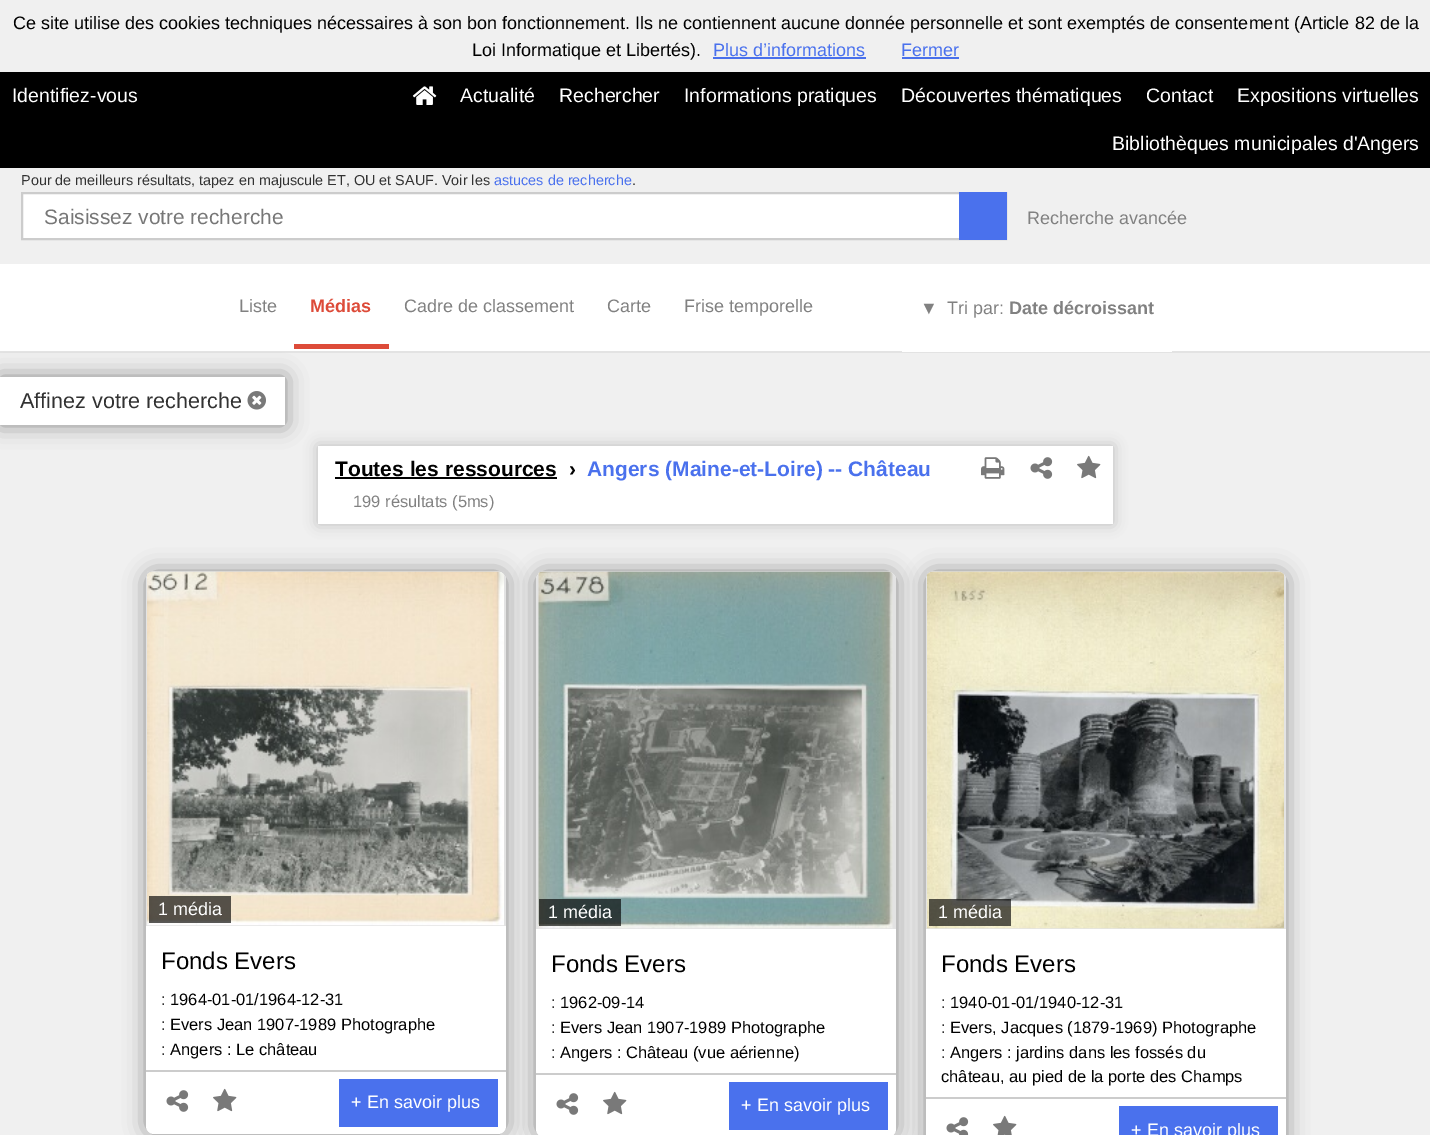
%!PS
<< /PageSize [1430 1135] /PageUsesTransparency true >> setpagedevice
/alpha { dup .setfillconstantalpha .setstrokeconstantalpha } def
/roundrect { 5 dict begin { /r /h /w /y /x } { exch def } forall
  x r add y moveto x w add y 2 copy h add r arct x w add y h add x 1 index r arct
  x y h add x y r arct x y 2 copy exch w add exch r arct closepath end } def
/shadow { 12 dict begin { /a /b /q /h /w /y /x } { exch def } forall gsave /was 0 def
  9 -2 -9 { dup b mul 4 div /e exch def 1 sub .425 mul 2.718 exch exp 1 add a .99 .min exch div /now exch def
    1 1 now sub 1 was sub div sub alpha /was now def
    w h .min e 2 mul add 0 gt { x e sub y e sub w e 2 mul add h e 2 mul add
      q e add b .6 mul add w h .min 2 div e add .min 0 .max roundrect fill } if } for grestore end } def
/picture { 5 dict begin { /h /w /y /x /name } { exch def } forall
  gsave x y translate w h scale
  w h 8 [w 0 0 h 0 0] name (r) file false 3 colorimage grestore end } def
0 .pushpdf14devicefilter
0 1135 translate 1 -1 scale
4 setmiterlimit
0.941 setgray
0 0 1430 1135 rectfill
/LiberationSans-Regular [18 0 0 -18 0 0] selectfont
0 setgray
13 29 moveto (Ce site utilise des cookies techniques nécessaires à son bon fonctionnement. Ils ne contiennent aucune donnée personnelle et sont exemptés de consentement \(Article 82 de la) show
472 56 moveto (Loi Informatique et Libertés\).) show
0.29 0.443 0.929 setrgbcolor
713 56 moveto (Plus d’informations) show
0.286 0.439 0.925 setrgbcolor
713 57 153 2 rectfill
0.29 0.443 0.929 setrgbcolor
901 56 moveto (Fermer) show
0.286 0.439 0.925 setrgbcolor
902 57 57 2 rectfill
0 setgray
0 72 1430 96 rectfill
/LiberationSans-Regular [19.5 0 0 -19.5 0 0] selectfont
1 setgray
12 102 moveto (Identifiez-vous) show
(img1.rgb) 412 86 25 19 picture
460 102 moveto (Actualité) show
559 102 moveto (Rechercher) show
684 102 moveto (Informations pratiques) show
901 102 moveto (Découvertes thématiques) show
1146 102 moveto (Contact) show
1237 102 moveto (Expositions virtuelles) show
1112 150 moveto (Bibliothèques municipales d'Angers) show
/LiberationSans-Regular [14.4 0 0 -14.4 0 0] selectfont
0.196 setgray
21 185 moveto (Pour de meilleurs résultats, tapez en majuscule ET, OU et SAUF. Voir les) show
0.29 0.443 0.929 setrgbcolor
494 185 moveto (astuces de recherche) show
0.196 setgray
632 185 moveto (.) show
1 setgray
23 194 936 44 rectfill
0.8 setgray
2 setlinewidth
22 193 984 46 rectstroke
/LiberationSans-Regular [20.9 0 0 -20.9 0 0] selectfont
0.467 setgray
44 224 moveto (Saisissez votre recherche) show
0.29 0.443 0.929 setrgbcolor
959 192 48 48 rectfill
/LiberationSans-Regular [18 0 0 -18 0 0] selectfont
0.506 setgray
1027 224 moveto (Recherche avancée) show
1 setgray
0 264 1430 87 rectfill
0.89 setgray
0 351 1430 2 rectfill
0.506 setgray
239 312 moveto (Liste) show
0.867 0.294 0.224 setrgbcolor
294 344 95 5 rectfill
/LiberationSans-Bold [18 0 0 -18 0 0] selectfont
310 312 moveto (Médias) show
/LiberationSans-Regular [18 0 0 -18 0 0] selectfont
0.506 setgray
404 312 moveto (Cadre de classement) show
607 312 moveto (Carte) show
684 312 moveto (Frise temporelle) show
1 setgray
902 351 270 1 rectfill
0.506 setgray
920 314 moveto (▼) show
947 314 moveto (Tri par:) show
/LiberationSans-Bold [18 0 0 -18 0 0] selectfont
1009 314 moveto (Date décroissant) show
0.733 setgray
318 446 795 78 0 7 1 shadow
1 setgray
318 446 795 78 rectfill
0.533 setgray
0 377 285 48 0 11 1 shadow
1 setgray
0 377 285 48 rectfill
/LiberationSans-Regular [21.6 0 0 -21.6 0 0] selectfont
0.196 setgray
20 408 moveto (Affinez votre recherche) show
(img2.rgb) 247 391 19 19 picture
/LiberationSans-Bold [21 0 0 -21 0 0] selectfont
0 setgray
335 476 moveto (Toutes les ressources) show
335 477 222 2 rectfill
569 476 moveto (›) show
0.29 0.443 0.929 setrgbcolor
587 476 moveto (Angers \(Maine-et-Loire\) -- Château) show
/LiberationSans-Regular [16.5 0 0 -16.5 0 0] selectfont
0.506 setgray
353 507 moveto (199 résultats \(5ms\)) show
(img3.rgb) 981 457 24 22 picture
(img4.rgb) 1030 457 23 22 picture
(img5.rgb) 1077 455 24 24 picture
0.533 setgray
146 572 360 562 8 11 1 shadow
1 setgray
146 572 360 562 8 roundrect fill
0.89 setgray
newpath 154 572 moveto 498 572 lineto 502.5 572 506 575.5 506 580 curveto 506 926 lineto 146 926 lineto 146 580 lineto 146 575.5 149.5 572 154 572 curveto closepath fill
(img6.rgb) 147 571 357 355 picture
0.65 alpha
0 setgray
149 896 82 27 rectfill
/LiberationSans-Regular [18 0 0 -18 0 0] selectfont
1 alpha
1 setgray
158 915 moveto (1 média) show
/LiberationSans-Regular [24 0 0 -24 0 0] selectfont
0 setgray
161 969 moveto (Fonds Evers) show
/LiberationSans-Regular [16.5 0 0 -16.5 0 0] selectfont
0.196 setgray
161 1005 moveto (:) show
0 setgray
170 1005 moveto (1964-01-01/1964-12-31) show
0.196 setgray
161 1030 moveto (:) show
0 setgray
170 1030 moveto (Evers Jean 1907-1989 Photographe) show
0.196 setgray
161 1055 moveto (:) show
0 setgray
170 1055 moveto (Angers : Le château) show
0.8 setgray
146 1070 360 2 rectfill
(img4.rgb) 166 1090 23 22 picture
(img5.rgb) 213 1088 24 24 picture
0.29 0.443 0.929 setrgbcolor
339 1079 159 48 rectfill
/LiberationSans-Regular [18 0 0 -18 0 0] selectfont
1 setgray
351 1108 moveto (+ En savoir plus) show
0.533 setgray
536 572 360 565 8 11 1 shadow
1 setgray
536 572 360 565 8 roundrect fill
0.89 setgray
newpath 544 572 moveto 888 572 lineto 892.5 572 896 575.5 896 580 curveto 896 929 lineto 536 929 lineto 536 580 lineto 536 575.5 539.5 572 544 572 curveto closepath fill
(img7.rgb) 538 571 355 358 picture
0.65 alpha
0 setgray
539 899 82 27 rectfill
1 alpha
1 setgray
548 918 moveto (1 média) show
/LiberationSans-Regular [24 0 0 -24 0 0] selectfont
0 setgray
551 972 moveto (Fonds Evers) show
/LiberationSans-Regular [16.5 0 0 -16.5 0 0] selectfont
0.196 setgray
551 1008 moveto (:) show
0 setgray
560 1008 moveto (1962-09-14) show
0.196 setgray
551 1033 moveto (:) show
0 setgray
560 1033 moveto (Evers Jean 1907-1989 Photographe) show
0.196 setgray
551 1058 moveto (:) show
0 setgray
560 1058 moveto (Angers : Château \(vue aérienne\)) show
0.8 setgray
536 1073 360 2 rectfill
(img4.rgb) 556 1093 23 22 picture
(img5.rgb) 603 1091 24 24 picture
0.29 0.443 0.929 setrgbcolor
729 1082 159 48 rectfill
/LiberationSans-Regular [18 0 0 -18 0 0] selectfont
1 setgray
741 1111 moveto (+ En savoir plus) show
0.533 setgray
926 572 360 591 8 11 1 shadow
1 setgray
newpath 934 572 moveto 1278 572 lineto 1282.5 572 1286 575.5 1286 580 curveto 1286 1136 lineto 926 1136 lineto 926 580 lineto 926 575.5 929.5 572 934 572 curveto closepath fill
0.89 setgray
newpath 934 572 moveto 1278 572 lineto 1282.5 572 1286 575.5 1286 580 curveto 1286 929 lineto 926 929 lineto 926 580 lineto 926 575.5 929.5 572 934 572 curveto closepath fill
(img8.rgb) 927 571 357 358 picture
0.65 alpha
0 setgray
929 899 82 27 rectfill
1 alpha
1 setgray
938 918 moveto (1 média) show
/LiberationSans-Regular [24 0 0 -24 0 0] selectfont
0 setgray
941 972 moveto (Fonds Evers) show
/LiberationSans-Regular [16.5 0 0 -16.5 0 0] selectfont
0.196 setgray
941 1008 moveto (:) show
0 setgray
950 1008 moveto (1940-01-01/1940-12-31) show
0.196 setgray
941 1033 moveto (:) show
0 setgray
950 1033 moveto (Evers, Jacques \(1879-1969\) Photographe) show
0.196 setgray
941 1058 moveto (:) show
0 setgray
950 1058 moveto (Angers : jardins dans les fossés du) show
941 1082 moveto (château, au pied de la porte des Champs) show
0.8 setgray
926 1097 360 2 rectfill
(img9.rgb) 946 1117 23 18 picture
(img10.rgb) 993 1115 24 20 picture
0.29 0.443 0.929 setrgbcolor
1119 1106 159 29 rectfill
/LiberationSans-Regular [18 0 0 -18 0 0] selectfont
1 setgray
1131 1136 moveto (+ En savoir plus) show
.poppdf14devicefilter showpage
